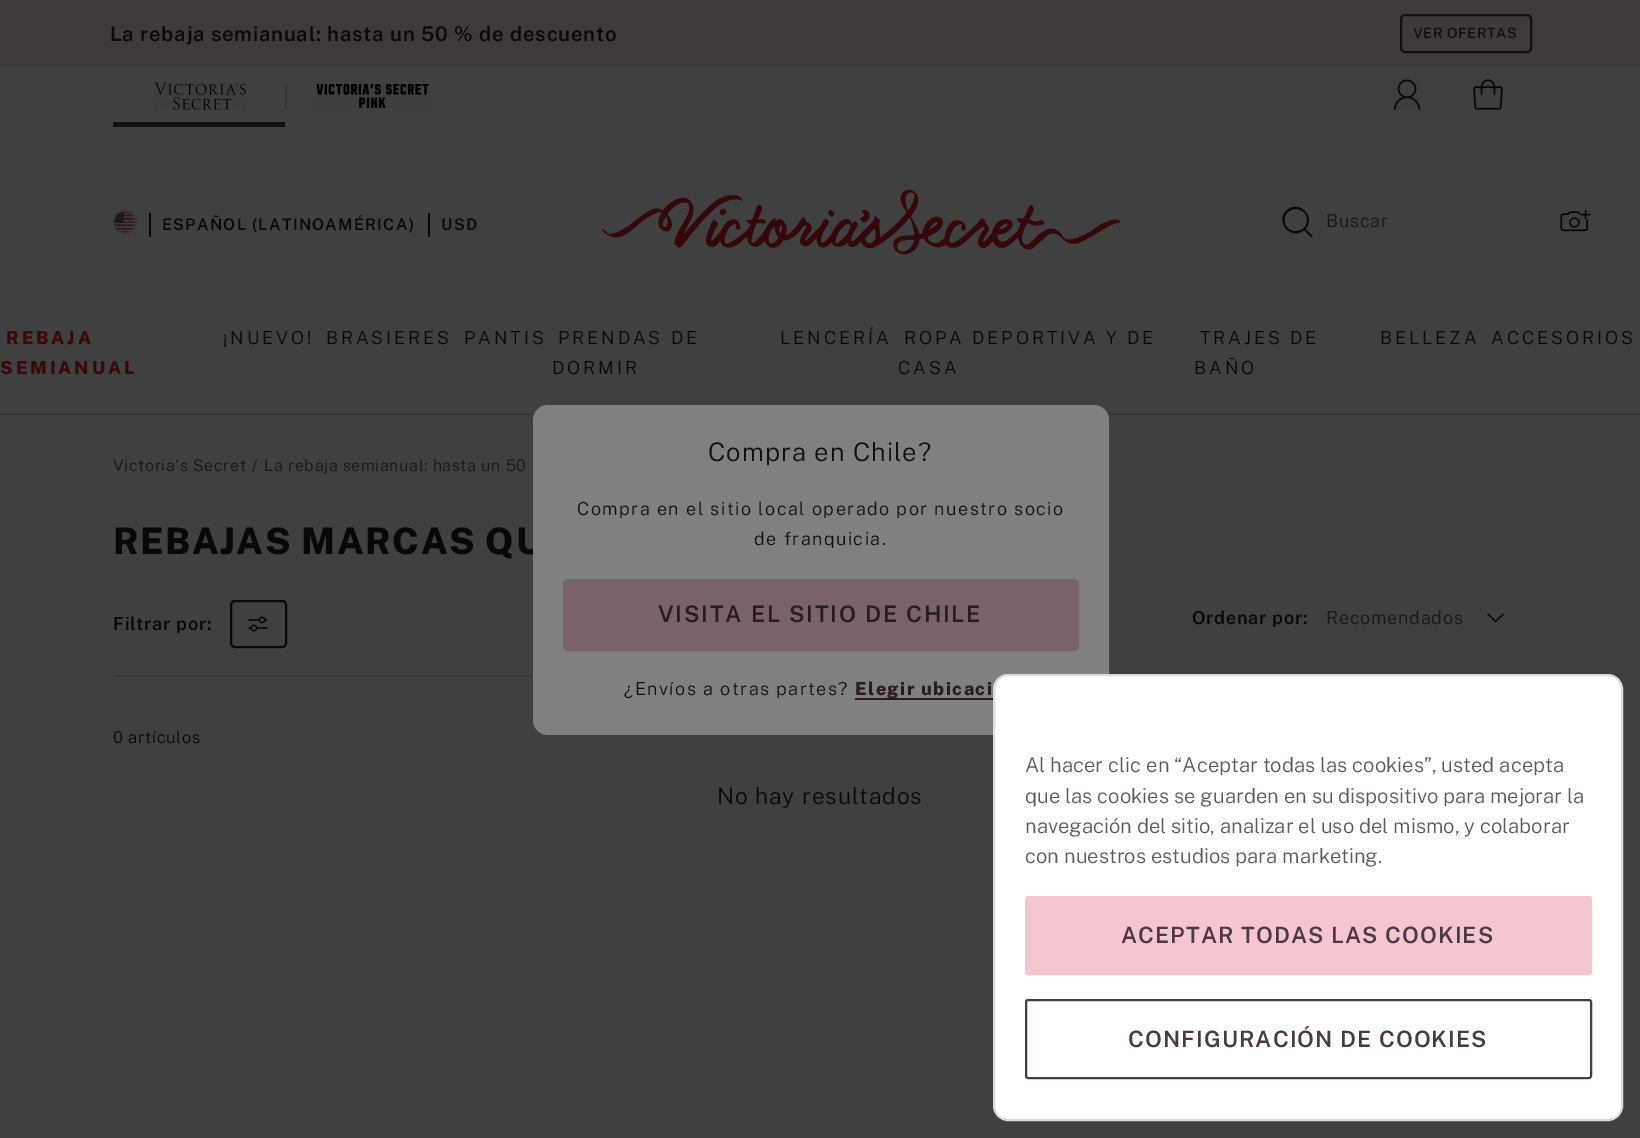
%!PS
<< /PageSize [1640 1138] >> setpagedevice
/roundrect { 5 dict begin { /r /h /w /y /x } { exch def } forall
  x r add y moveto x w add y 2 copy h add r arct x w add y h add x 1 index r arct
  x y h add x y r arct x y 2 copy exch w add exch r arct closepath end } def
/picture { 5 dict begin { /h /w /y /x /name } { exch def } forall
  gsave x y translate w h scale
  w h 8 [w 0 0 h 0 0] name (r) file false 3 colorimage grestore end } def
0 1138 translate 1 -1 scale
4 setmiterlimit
0.251 setgray
0 0 1640 1138 rectfill
0.247 0.224 0.227 setrgbcolor
0 0 1640 66 rectfill
/PublicSans-SemiBold [20.25 0 0 -20.25 0 0] selectfont
0.035 0.031 0.031 setrgbcolor
110 41 moveto 0.8 0 (La rebaja semianual: hasta un 50 % de descuento) ashow
0.078 0.055 0.067 setrgbcolor
2 setlinewidth
1401 15 130 37 4 roundrect stroke
/PublicSans-SemiBold [14.25 0 0 -14.25 0 0] selectfont
1413 38 moveto 0.5 0 (VER OFERTAS) ashow
113 122 172 5 rectfill
(img1.rgb) 154 82 92 28 picture
0.22 0.216 0.212 setrgbcolor
285 83 2 27 rectfill
(img2.rgb) 316 84 113 24 picture
(img3.rgb) 1393 79 28 31 picture
(img4.rgb) 1473 79 30 31 picture
newpath 125 222 11 0 360 arc closepath stroke
(img5.rgb) 114 211 21 22 picture
0.035 0.031 0.031 setrgbcolor
149 213 2 24 rectfill
/PublicSans-SemiBold [16 0 0 -16 0 0] selectfont
162 230 moveto 1.25 0 (ESPAÑOL \(LATINOAMÉRICA\)) ashow
428 213 2 24 rectfill
441 230 moveto 1.25 0 (USD) ashow
(img6.rgb) 602 189 519 66 picture
newpath 1307 220 moveto 1307 235 1284.5 235 1284.5 220 curveto 1284.5 205.5 1307 205.5 1307 220 curveto closepath 1304 230 moveto 1291.5 241 1274.5 222 1286.5 210.5 curveto 1298.5 199 1316.5 216.5 1305.5 229 curveto 1312.5 236 lineto 1311 237 lineto closepath eofill
/PublicSans-Light [18 0 0 -18 0 0] selectfont
0.094 0.086 0.086 setrgbcolor
1326 227 moveto 0.75 0 (Buscar) ashow
(img7.rgb) 1560 210 31 22 picture
/PublicSans-ExtraBold [18 0 0 -18 0 0] selectfont
0.231 0.031 0.039 setrgbcolor
6 344 moveto 2.9 0 (REBAJA) ashow
0 374 moveto 2.9 0 (SEMIANUAL) ashow
/PublicSans-Light [18 0 0 -18 0 0] selectfont
0.035 0.031 0.031 setrgbcolor
223 344 moveto 2.9 0 (¡NUEVO!) ashow
326 344 moveto 2.9 0 (BRASIERES) ashow
464 344 moveto 2.9 0 (PANTIS) ashow
558 344 moveto 2.9 0 (PRENDAS DE) ashow
552 374 moveto 2.9 0 (DORMIR) ashow
780 344 moveto 2.9 0 (LENCERÍA) ashow
904 344 moveto 2.9 0 (ROPA DEPORTIVA Y DE) ashow
898 374 moveto 2.9 0 (CASA) ashow
1200 344 moveto 2.9 0 (TRAJES DE) ashow
1194 374 moveto 2.9 0 (BAÑO) ashow
1380 344 moveto 2.9 0 (BELLEZA) ashow
1491 344 moveto 2.9 0 (ACCESORIOS) ashow
0.22 0.216 0.212 setrgbcolor
0 413 1640 2 rectfill
/PublicSans-Light [16 0 0 -16 0 0] selectfont
0.094 0.086 0.086 setrgbcolor
113 471 moveto 0.65 0 (Victoria's Secret) ashow
252 471 moveto 0.65 0 (/) ashow
264 471 moveto 0.65 0 (La rebaja semianual: hasta un 50) ashow
/PublicSans-ExtraBold [36.5 0 0 -36.5 0 0] selectfont
0.035 0.031 0.031 setrgbcolor
113 554 moveto 1.5 0 (REBAJAS MARCAS QU) ashow
0.227 0.224 0.22 setrgbcolor
113 675 420 2 rectfill
/PublicSans-SemiBold [18 0 0 -18 0 0] selectfont
0.035 0.031 0.031 setrgbcolor
113 630 moveto 0.75 0 (Filtrar por:) ashow
231 601 55 46 4 roundrect stroke
(img8.rgb) 248 616 20 16 picture
1192 624 moveto 0.75 0 (Ordenar por:) ashow
/PublicSans-Light [18 0 0 -18 0 0] selectfont
0.094 0.086 0.086 setrgbcolor
1326 624 moveto 0.75 0 (Recomendados) ashow
0.035 0.031 0.031 setrgbcolor
1.2 setlinewidth
1 setlinecap
newpath 1503.5 614 moveto 1495.5 621.5 lineto 1488 614 lineto stroke
/PublicSans-Light [16.5 0 0 -16.5 0 0] selectfont
113 743 moveto 0.65 0 (0 artículos) ashow
/PublicSans-Light [22.75 0 0 -22.75 0 0] selectfont
717 804 moveto 0.9 0 (No hay resultados) ashow
0.502 setgray
533 405 576 330 15 roundrect fill
/PublicSans-Light [25.6 0 0 -25.6 0 0] selectfont
0.078 0.055 0.067 setrgbcolor
708 461 moveto 1 0 (Compra en Chile?) ashow
/PublicSans-Light [18 0 0 -18 0 0] selectfont
577 515 moveto 1.45 0 (Compra en el sitio local operado por nuestro socio) ashow
754 545 moveto 1.45 0 (de franquicia.) ashow
0.478 0.388 0.408 setrgbcolor
564 580 514 70 4 roundrect gsave fill grestore
2 setlinewidth
0 setlinecap
stroke
/PublicSans-SemiBold [22.75 0 0 -22.75 0 0] selectfont
0.153 0.11 0.133 setrgbcolor
658 622 moveto 1.8 0 (VISITA EL SITIO DE CHILE) ashow
/PublicSans-Light [18 0 0 -18 0 0] selectfont
0.078 0.055 0.067 setrgbcolor
624 695 moveto 1.45 0 (¿Envíos a otras partes?) ashow
0.153 0.11 0.133 setrgbcolor
855 698 138 2 rectfill
/PublicSans-ExtraBold [18 0 0 -18 0 0] selectfont
855 695 moveto 1.45 0 (Elegir ubicaci) ashow
1 setgray
994 675 628 445 14 roundrect gsave fill grestore
0.878 0.855 0.835 setrgbcolor
stroke
/PublicSans-Light [20.25 0 0 -20.25 0 0] selectfont
0.376 0.345 0.345 setrgbcolor
1025 772 moveto (Al hacer clic en “Aceptar todas las cookies”, usted acepta) show
1025 803 moveto (que las cookies se guarden en su dispositivo para mejorar la) show
1025 833 moveto (navegación del sitio, analizar el uso del mismo, y colaborar) show
1025 863 moveto (con nuestros estudios para marketing.) show
0.957 0.776 0.812 setrgbcolor
1026 897 565 77 2 roundrect gsave fill grestore
stroke
/PublicSans-SemiBold [22.5 0 0 -22.5 0 0] selectfont
0.306 0.22 0.267 setrgbcolor
1121 943 moveto 1.1 0 (ACEPTAR TODAS LAS COOKIES) ashow
1026 1000 565 78 2 roundrect stroke
1128 1047 moveto 1.1 0 (CONFIGURACIÓN DE COOKIES) ashow
showpage
